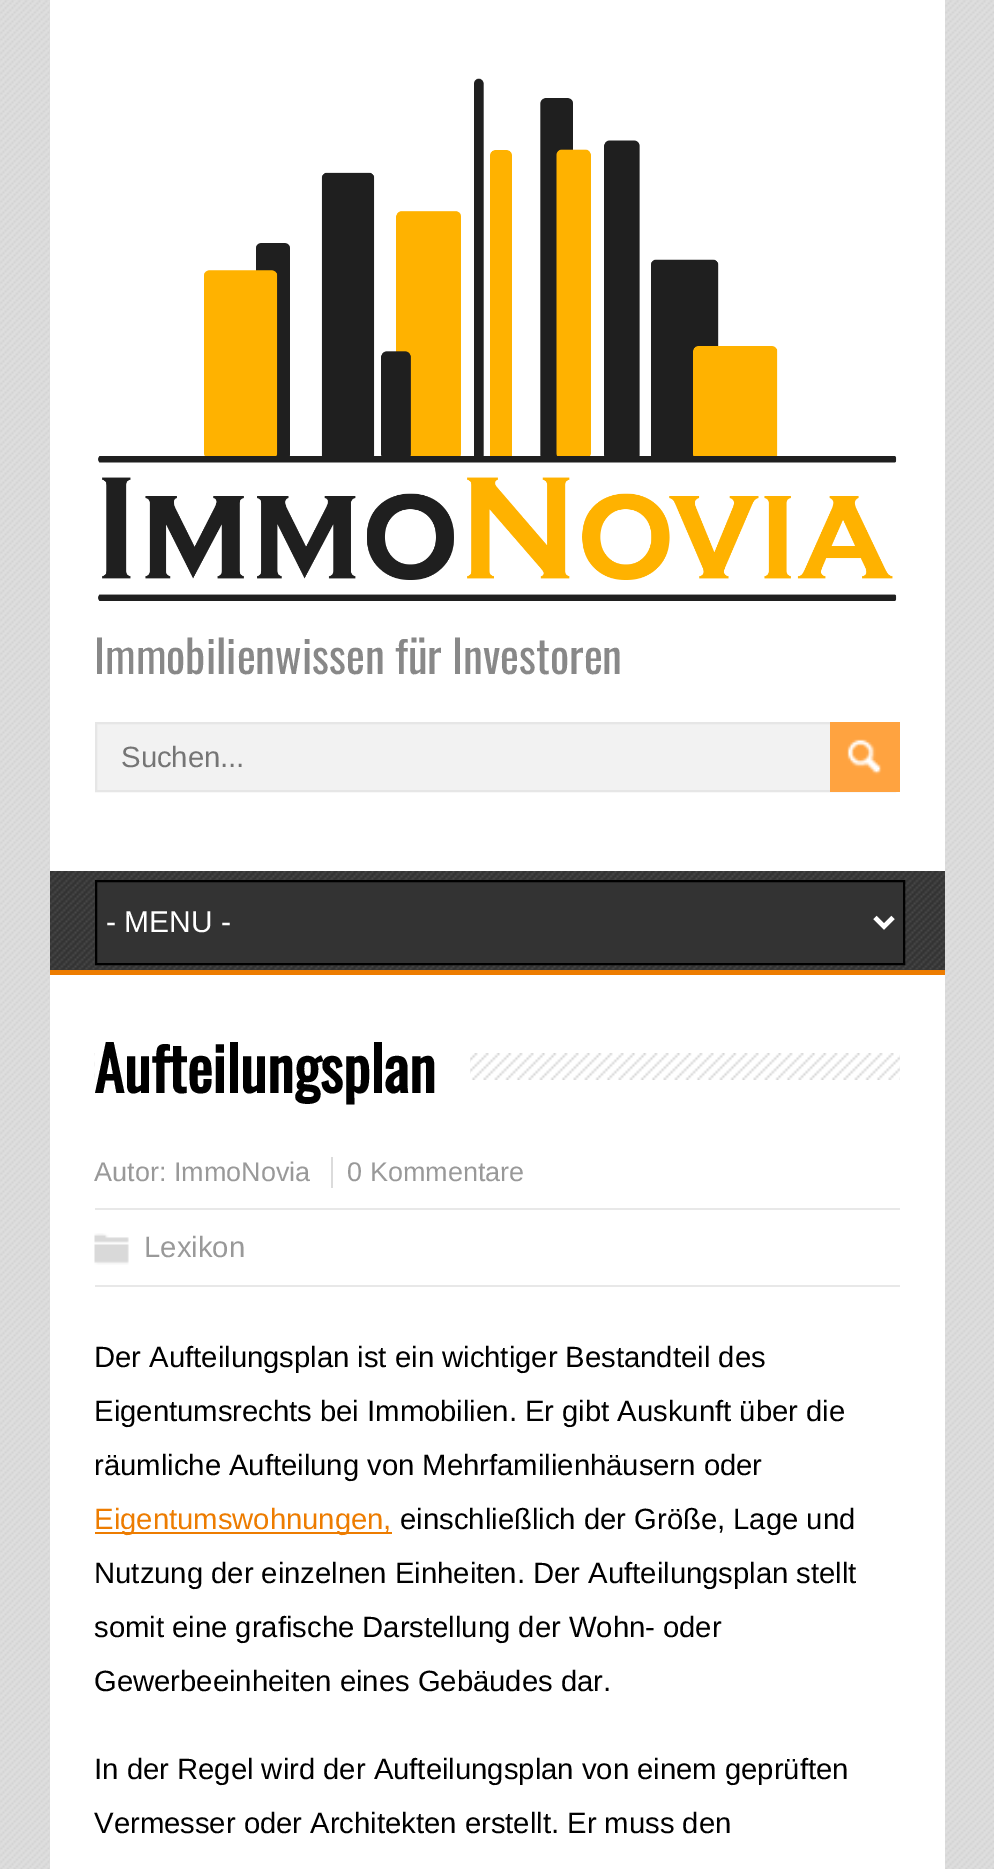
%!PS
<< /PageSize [994 1869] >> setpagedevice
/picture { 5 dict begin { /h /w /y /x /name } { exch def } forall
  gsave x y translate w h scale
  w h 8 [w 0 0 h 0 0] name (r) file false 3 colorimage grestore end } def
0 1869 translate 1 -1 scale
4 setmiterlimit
0.871 setgray
0 0 994 1869 rectfill
(img1.rgb) 0 0 994 1869 picture
1 setgray
50 0 895 871 rectfill
(img2.rgb) 98 78 799 523 picture
/Oswald-Regular [45 0 0 -45 0 0] selectfont
0.533 setgray
94 674 moveto (Immobilienwissen für Investoren) show
0.949 setgray
97 724 733 66 rectfill
0.902 setgray
2 setlinewidth
96 723 799 68 rectstroke
/LiberationSans-Regular [29.25 0 0 -29.25 0 0] selectfont
0.459 setgray
121 767 moveto (Suchen...) show
1 0.639 0.251 setrgbcolor
830 722 70 70 rectfill
(img3.rgb) 847 739 35 36 picture
0.2 setgray
50 871 895 99 rectfill
0.929 0.486 0 setrgbcolor
50 970 895 5 rectfill
(img4.rgb) 50 871 895 99 picture
0.2 setgray
newpath 96 881 moveto 904 881 lineto 904 964 lineto 96 964 lineto closepath gsave fill grestore
0 setgray
stroke
1 setgray
4.5 setlinewidth
newpath 875 917.5 moveto 884 926.5 lineto 893 917.5 lineto stroke
/LiberationSans-Regular [30 0 0 -30 0 0] selectfont
106 932 moveto (- MENU -) show
50 975 895 894 rectfill
(img5.rgb) 94 1053 806 27 picture
95 1053 375 27 rectfill
/Oswald-Bold [60.75 0 0 -60.75 0 0] selectfont
0 setgray
94 1093 moveto (Aufteilungsplan) show
/LiberationSans-Regular [27 0 0 -27 0 0] selectfont
0.6 setgray
94 1181 moveto (Autor: ImmoNovia) show
347 1181 moveto (0 Kommentare) show
0.859 setgray
331 1157 2 31 rectfill
0.91 setgray
95 1208 805 2 rectfill
95 1285 805 2 rectfill
(img6.rgb) 94 1233 35 32 picture
/LiberationSans-Regular [29.25 0 0 -29.25 0 0] selectfont
0.6 setgray
144 1257 moveto (Lexikon) show
0 setgray
94 1367 moveto (Der Aufteilungsplan ist ein wichtiger Bestandteil des) show
94 1421 moveto (Eigentumsrechts bei Immobilien. Er gibt Auskunft über die) show
94 1475 moveto (räumliche Aufteilung von Mehrfamilienhäusern oder) show
0.929 0.486 0 setrgbcolor
95 1532 297 2 rectfill
94 1529 moveto (Eigentumswohnungen,) show
0 setgray
400 1529 moveto (einschließlich der Größe, Lage und) show
94 1583 moveto (Nutzung der einzelnen Einheiten. Der Aufteilungsplan stellt) show
94 1637 moveto (somit eine grafische Darstellung der Wohn- oder) show
94 1691 moveto (Gewerbeeinheiten eines Gebäudes dar.) show
94 1779 moveto (In der Regel wird der Aufteilungsplan von einem geprüften) show
94 1833 moveto (Vermesser oder Architekten erstellt. Er muss den) show
showpage
